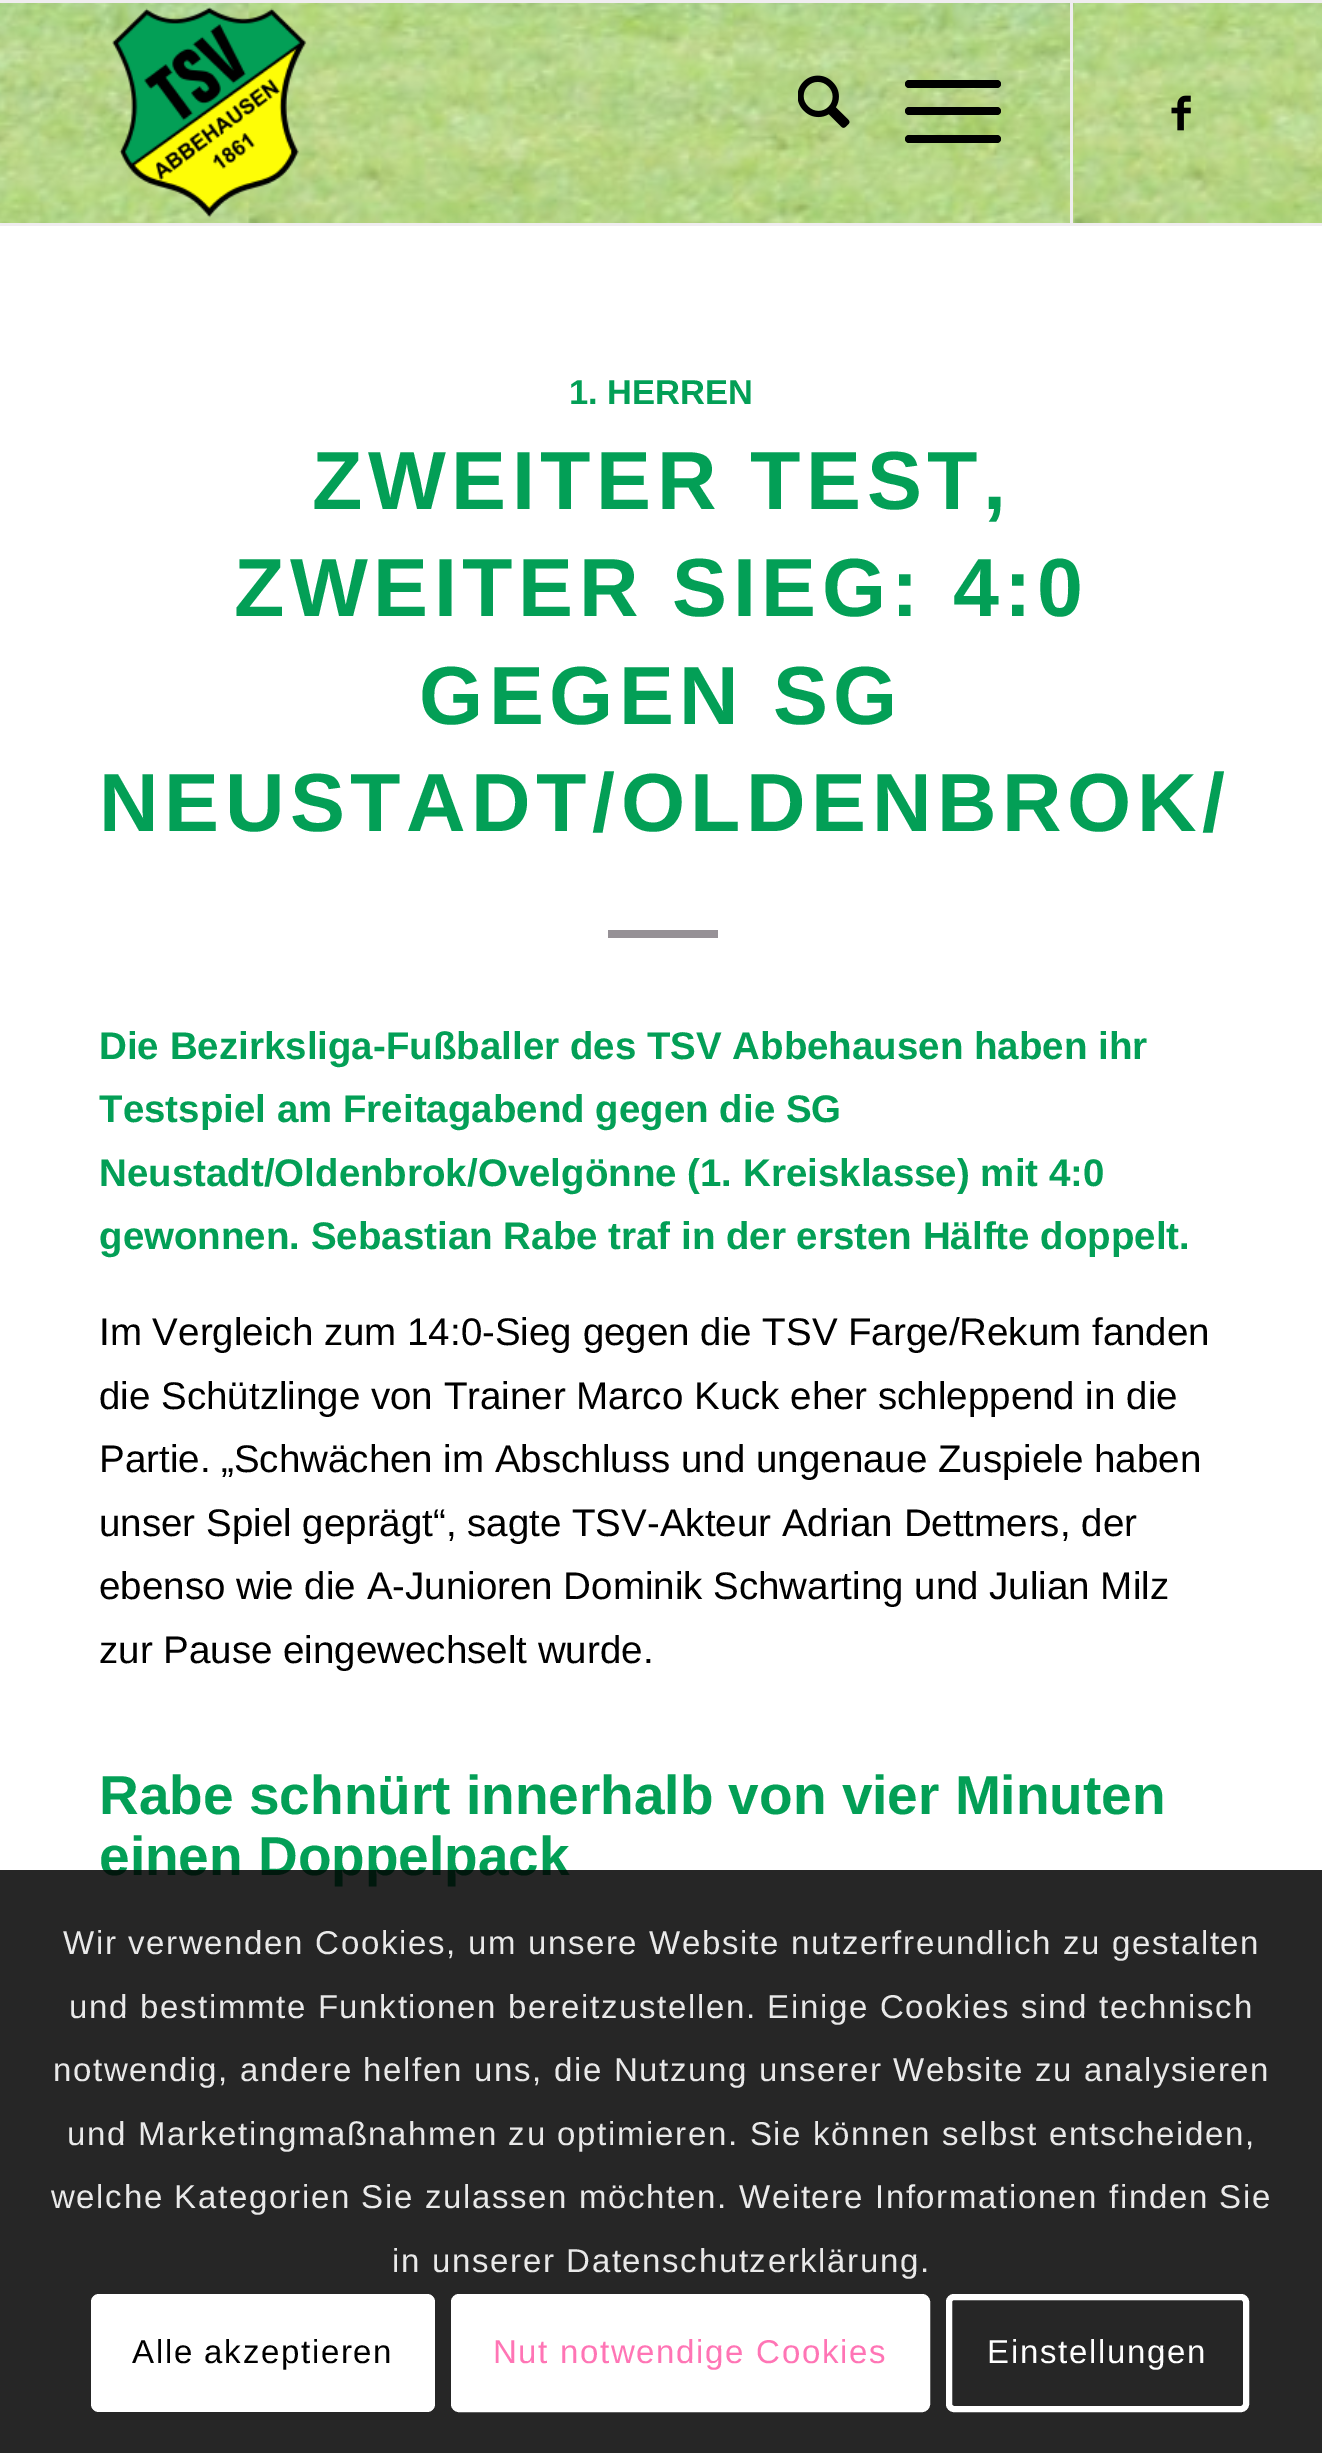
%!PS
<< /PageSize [1322 2453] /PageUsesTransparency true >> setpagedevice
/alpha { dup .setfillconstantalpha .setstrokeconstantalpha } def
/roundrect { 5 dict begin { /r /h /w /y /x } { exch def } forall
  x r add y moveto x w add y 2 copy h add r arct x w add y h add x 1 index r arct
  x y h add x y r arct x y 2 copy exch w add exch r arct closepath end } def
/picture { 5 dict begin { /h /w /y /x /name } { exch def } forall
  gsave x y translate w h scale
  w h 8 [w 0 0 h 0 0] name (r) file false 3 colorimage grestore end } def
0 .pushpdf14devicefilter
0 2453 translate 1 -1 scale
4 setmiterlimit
1 setgray
0 0 1322 2453 rectfill
0.941 0.929 0.941 setrgbcolor
0 0 1322 3 rectfill
0 223 1322 3 rectfill
(img4.rgb) 0 3 1322 220 picture
(img1.rgb) 112 7 195 211 picture
1070 3 3 220 rectfill
(img2.rgb) 798 75 52 53 picture
0 setgray
905 107 96 8 4 roundrect fill
905 80 96 8 4 roundrect fill
905 135 96 8 4 roundrect fill
(img3.rgb) 1171 95 20 36 picture
/LiberationSans-Bold [34.5 0 0 -34.5 0 0] selectfont
0.012 0.624 0.337 setrgbcolor
569 404 moveto (1. HERREN) show
/LiberationSans-Bold [82.5 0 0 -82.5 0 0] selectfont
312 509 moveto 5.5 0 (ZWEITER TEST,) ashow
234 616 moveto 5.5 0 (ZWEITER SIEG: 4:0) ashow
419 724 moveto 5.5 0 (GEGEN SG) ashow
99 831 moveto 5.5 0 (NEUSTADT/OLDENBROK/) ashow
0.588 0.569 0.588 setrgbcolor
608 930 110 8 rectfill
/LiberationSans-Bold [38.5 0 0 -38.5 0 0] selectfont
0.012 0.624 0.337 setrgbcolor
99 1059 moveto (Die Bezirksliga-Fußballer des TSV Abbehausen haben ihr) show
99 1122 moveto (Testspiel am Freitagabend gegen die SG) show
99 1186 moveto (Neustadt/Oldenbrok/Ovelgönne \(1. Kreisklasse\) mit 4:0) show
99 1249 moveto (gewonnen. Sebastian Rabe traf in der ersten Hälfte doppelt.) show
/LiberationSans-Regular [38.5 0 0 -38.5 0 0] selectfont
0 setgray
99 1345 moveto (Im Vergleich zum 14:0-Sieg gegen die TSV Farge/Rekum fanden) show
99 1409 moveto (die Schützlinge von Trainer Marco Kuck eher schleppend in die) show
99 1472 moveto (Partie. „Schwächen im Abschluss und ungenaue Zuspiele haben) show
99 1536 moveto (unser Spiel geprägt“, sagte TSV-Akteur Adrian Dettmers, der) show
99 1599 moveto (ebenso wie die A-Junioren Dominik Schwarting und Julian Milz) show
99 1663 moveto (zur Pause eingewechselt wurde.) show
/LiberationSans-Bold [55 0 0 -55 0 0] selectfont
0.012 0.624 0.337 setrgbcolor
99 1814 moveto (Rabe schnürt innerhalb von vier Minuten) show
99 1875 moveto (einen Doppelpack) show
0.85 alpha
0 setgray
0 1870 1322 583 rectfill
/LiberationSans-Regular [33 0 0 -33 0 0] selectfont
1 alpha
0.914 setgray
63 1954 moveto 1.65 0 (Wir verwenden Cookies, um unsere Website nutzerfreundlich zu gestalten) ashow
69 2018 moveto 1.65 0 (und bestimmte Funktionen bereitzustellen. Einige Cookies sind technisch) ashow
53 2081 moveto 1.65 0 (notwendig, andere helfen uns, die Nutzung unserer Website zu analysieren) ashow
67 2145 moveto 1.65 0 (und Marketingmaßnahmen zu optimieren. Sie können selbst entscheiden,) ashow
51 2208 moveto 1.65 0 (welche Kategorien Sie zulassen möchten. Weitere Informationen finden Sie) ashow
392 2272 moveto 1.65 0 (in unserer Datenschutzerklärung.) ashow
1 setgray
91 2294 344 118 8 roundrect fill
0 setgray
132 2363 moveto 1.65 0 (Alle akzeptieren) ashow
1 setgray
454 2297 473 112 5 roundrect gsave fill grestore
6 setlinewidth
stroke
1 0.459 0.71 setrgbcolor
493 2363 moveto 1.65 0 (Nut notwendige Cookies) ashow
1 setgray
949 2297 297 112 5 roundrect stroke
987 2363 moveto 1.65 0 (Einstellungen) ashow
.poppdf14devicefilter showpage
